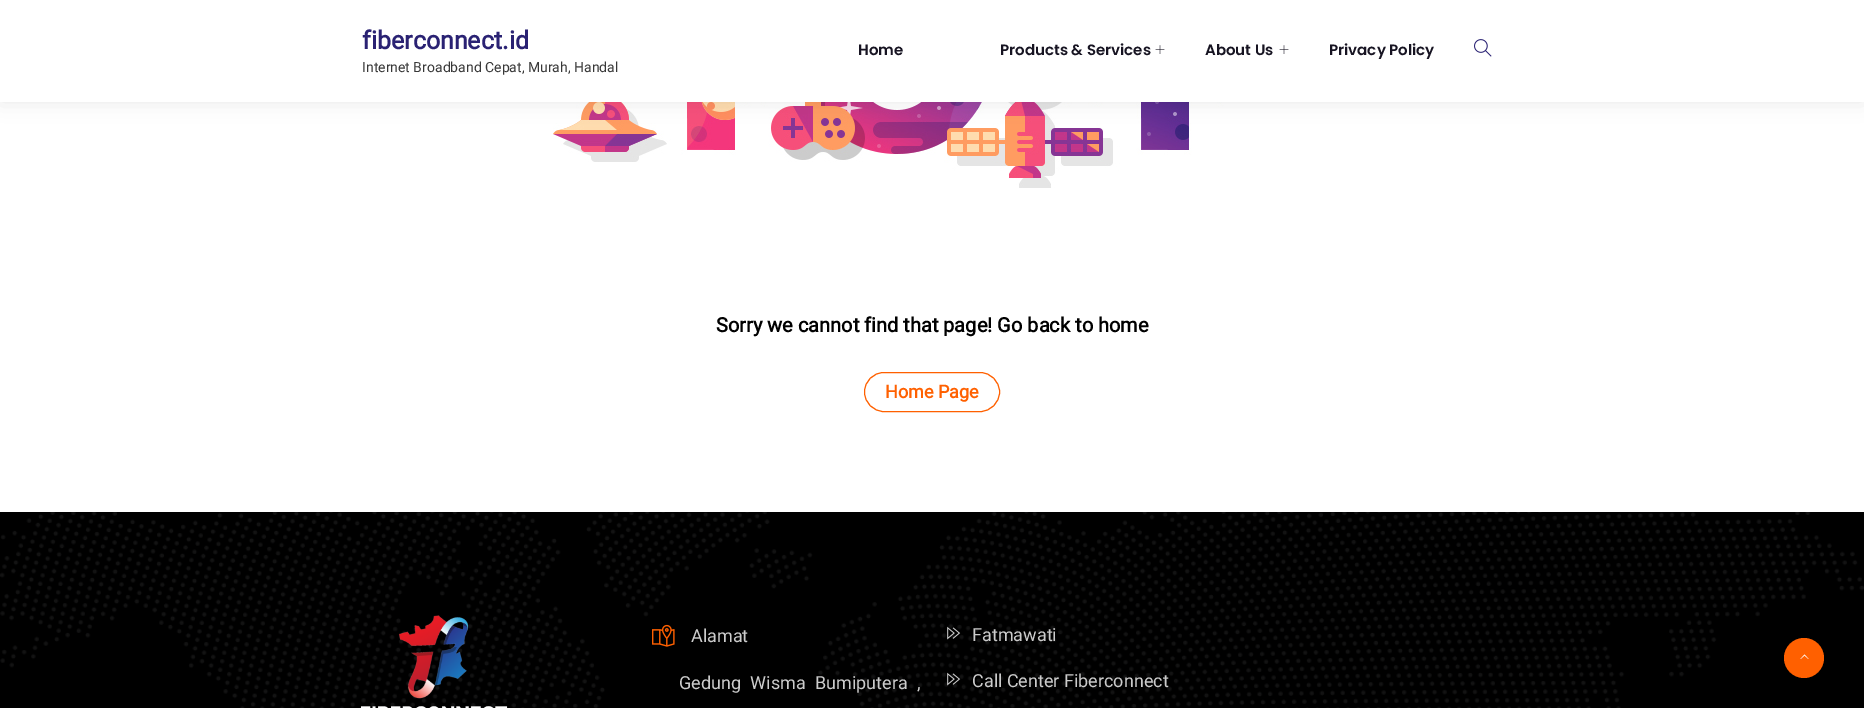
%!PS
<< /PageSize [1864 708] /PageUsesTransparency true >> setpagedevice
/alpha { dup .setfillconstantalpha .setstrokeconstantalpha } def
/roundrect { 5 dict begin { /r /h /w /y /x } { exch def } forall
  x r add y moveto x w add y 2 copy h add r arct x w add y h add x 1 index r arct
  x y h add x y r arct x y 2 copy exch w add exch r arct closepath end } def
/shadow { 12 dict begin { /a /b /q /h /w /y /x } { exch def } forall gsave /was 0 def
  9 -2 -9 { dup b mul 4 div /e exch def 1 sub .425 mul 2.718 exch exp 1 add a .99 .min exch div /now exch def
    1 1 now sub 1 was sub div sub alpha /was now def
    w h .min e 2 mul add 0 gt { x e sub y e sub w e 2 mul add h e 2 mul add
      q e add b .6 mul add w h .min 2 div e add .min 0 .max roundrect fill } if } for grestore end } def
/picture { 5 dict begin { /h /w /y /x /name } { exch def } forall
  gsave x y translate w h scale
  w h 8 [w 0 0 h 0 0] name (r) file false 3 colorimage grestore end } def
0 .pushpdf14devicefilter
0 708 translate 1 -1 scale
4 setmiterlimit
1 setgray
0 0 1864 708 rectfill
(img3.rgb) 553 102 756 86 picture
0 setgray
1 1 1862 100 0 10 0.1 shadow
1 setgray
0 0 1864 102 rectfill
/Roboto-Bold [25 0 0 -25 0 0] selectfont
0.165 0.133 0.451 setrgbcolor
362 49 moveto (fiberconnect.id) show
/Roboto-Regular [14 0 0 -14 0 0] selectfont
0.22 setgray
362 72 moveto (Internet Broadband Cepat, Murah, Handal) show
/Poppins-SemiBold [15 0 0 -15 0 0] selectfont
0.09 0.078 0.133 setrgbcolor
858 55 moveto (Home) show
1000 55 moveto (Products & Services) show
(img1.rgb) 1155 45 10 9 picture
1205 55 moveto (About Us) show
(img1.rgb) 1279 45 10 9 picture
1329 55 moveto (Privacy Policy) show
(img2.rgb) 1474 39 18 18 picture
/Roboto-Bold [20 0 0 -20 0 0] selectfont
0 setgray
716 332 moveto (Sorry we cannot find that page! Go back to home) show
1 0.376 0 setrgbcolor
864.5 372.5 135 39 19.5 roundrect stroke
/Roboto-Bold [18 0 0 -18 0 0] selectfont
885 398 moveto (Home Page) show
(img4.rgb) 0 512 1864 196 picture
(img5.rgb) 361 615 147 93 picture
(img6.rgb) 652 624 23 23 picture
/Roboto-Regular [18 0 0 -18 0 0] selectfont
0.8 setgray
691 642 moveto (Alamat) show
679 689 moveto 5 0 32 (Gedung Wisma Bumiputera ,) widthshow
(img7.rgb) 947 626 14 14 picture
972 641 moveto (Fatmawati) show
(img8.rgb) 947 672 14 14 picture
972 687 moveto (Call Center Fiberconnect) show
1 0.376 0 setrgbcolor
newpath 1804 658 20 0 360 arc closepath fill
1 setgray
newpath 1808.5 659 moveto 1804.5 655.5 lineto 1800.5 659 lineto 1804.5 654.5 lineto closepath fill
.poppdf14devicefilter showpage
